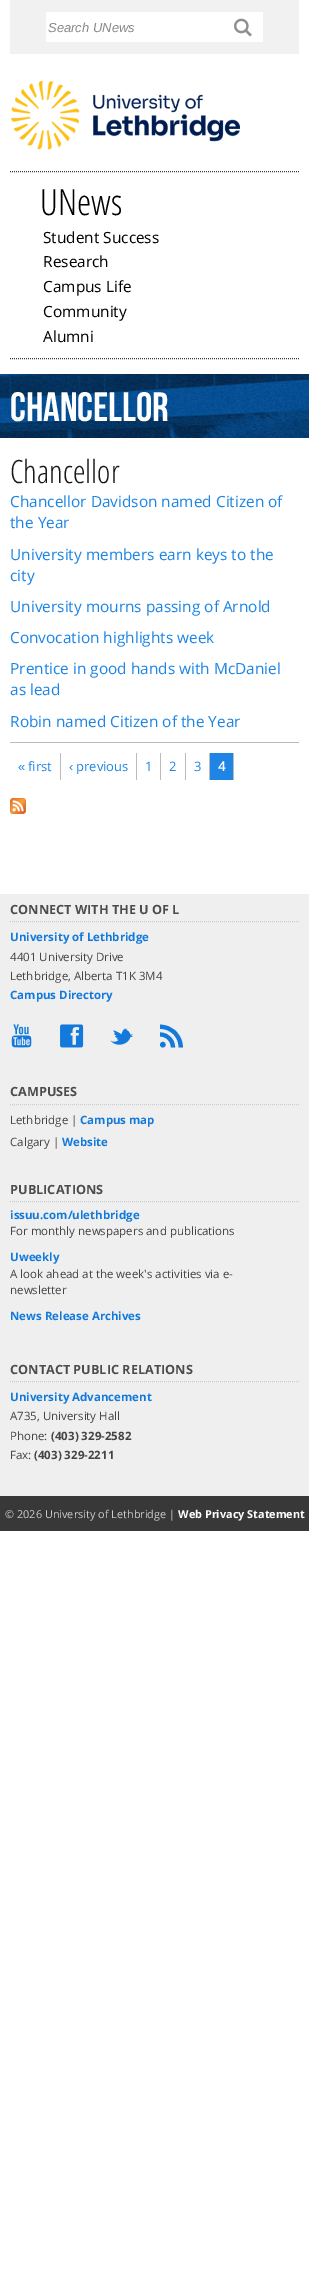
%!PS
<< /PageSize [309 2292] >> setpagedevice
/roundrect { 5 dict begin { /r /h /w /y /x } { exch def } forall
  x r add y moveto x w add y 2 copy h add r arct x w add y h add x 1 index r arct
  x y h add x y r arct x y 2 copy exch w add exch r arct closepath end } def
/picture { 5 dict begin { /h /w /y /x /name } { exch def } forall
  gsave x y translate w h scale
  w h 8 [w 0 0 h 0 0] name (r) file false 3 colorimage grestore end } def
0 2292 translate 1 -1 scale
4 setmiterlimit
1 setgray
0 0 309 2292 rectfill
0.945 setgray
10 0 289 54 rectfill
1 setgray
46 12 186 30 2 roundrect fill
/LiberationSans-Italic [13 0 0 -13 0 0] selectfont
0.533 setgray
48 32 moveto (Search UNews) show
1 setgray
232 12 31 30 rectfill
(img1.rgb) 234 18 18 19 picture
(img2.rgb) 11 81 229 69 picture
0.2 setgray
[1 1] 0 setdash
newpath 10 171.5 moveto 299 171.5 lineto stroke
newpath 10 358.5 moveto 299 358.5 lineto stroke
/OpenSans-Light [36 0 0 -36 0 0] selectfont
0 setgray
40 215 moveto (UNews) show
/OpenSans-Regular [15.4 0 0 -15.4 0 0] selectfont
43 243 moveto (Student Success) show
43 267 moveto (Research) show
43 292 moveto (Campus Life) show
43 317 moveto (Community) show
43 342 moveto (Alumni) show
(img3.rgb) 0 374 309 64 picture
/BebasNeue-Regular [41 0 0 -41 0 0] selectfont
1 setgray
10 421 moveto (Chancellor) show
/OpenSans-Light [32 0 0 -32 0 0] selectfont
0.094 setgray
10 483 moveto (Chancellor) show
/OpenSans-Regular [15.4 0 0 -15.4 0 0] selectfont
0.118 0.522 0.902 setrgbcolor
10 507 moveto (Chancellor Davidson named Citizen of) show
10 528 moveto (the Year) show
10 560 moveto (University members earn keys to the) show
10 581 moveto (city) show
10 612 moveto (University mourns passing of Arnold) show
10 643 moveto (Convocation highlights week) show
10 674 moveto (Prentice in good hands with McDaniel) show
10 695 moveto (as lead) show
10 727 moveto (Robin named Citizen of the Year) show
0.733 setgray
10 742 289 1 rectfill
60 753 1 27 rectfill
/LiberationSans-Regular [13 0 0 -13 0 0] selectfont
0.118 0.522 0.902 setrgbcolor
18 771 moveto («) show
/OpenSans-Regular [13 0 0 -13 0 0] selectfont
28 771 moveto (first) show
0.733 setgray
136 753 1 27 rectfill
/LiberationSans-Regular [13 0 0 -13 0 0] selectfont
0.118 0.522 0.902 setrgbcolor
69 771 moveto (‹) show
/OpenSans-Regular [13 0 0 -13 0 0] selectfont
76 771 moveto (previous) show
0.733 setgray
160 753 1 27 rectfill
0.118 0.522 0.902 setrgbcolor
145 771 moveto (1) show
0.733 setgray
185 753 1 27 rectfill
0.118 0.522 0.902 setrgbcolor
169 771 moveto (2) show
0.733 setgray
209 753 1 27 rectfill
0.118 0.522 0.902 setrgbcolor
194 771 moveto (3) show
210 753 23 27 rectfill
0.733 setgray
233 753 1 27 rectfill
/OpenSans-Bold [13 0 0 -13 0 0] selectfont
1 setgray
218 771 moveto (4) show
(img4.rgb) 10 798 16 16 picture
0.937 setgray
0 894 309 602 rectfill
0.8 setgray
newpath 10 921.5 moveto 299 921.5 lineto stroke
/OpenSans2-Bold [12.7 0 0 -12.7 0 0] selectfont
0.298 setgray
10 914 moveto (CONNECT WITH THE U OF L) show
/OpenSans2-Bold [11.5 0 0 -11.5 0 0] selectfont
0.075 0.478 0.859 setrgbcolor
10 941 moveto (University of Lethbridge) show
/OpenSans-Regular [11.5 0 0 -11.5 0 0] selectfont
0.267 setgray
10 961 moveto (4401 University Drive) show
10 980 moveto (Lethbridge, Alberta T1K 3M4) show
/OpenSans2-Bold [11.5 0 0 -11.5 0 0] selectfont
0.075 0.478 0.859 setrgbcolor
10 999 moveto (Campus Directory) show
(img5.rgb) 11 1024 21 24 picture
(img6.rgb) 60 1024 24 24 picture
(img7.rgb) 110 1028 23 17 picture
/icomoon-Regular [23 0 0 -23 0 0] selectfont
160 1046 moveto (⇱) show
0.8 setgray
newpath 10 1104.5 moveto 299 1104.5 lineto stroke
/OpenSans2-Bold [12.7 0 0 -12.7 0 0] selectfont
0.298 setgray
10 1096 moveto (CAMPUSES) show
/OpenSans-Regular [11.5 0 0 -11.5 0 0] selectfont
0.267 setgray
10 1124 moveto (Lethbridge |) show
/OpenSans2-Bold [11.5 0 0 -11.5 0 0] selectfont
0.075 0.478 0.859 setrgbcolor
80 1124 moveto (Campus map) show
/OpenSans-Regular [11.5 0 0 -11.5 0 0] selectfont
0.267 setgray
10 1146 moveto (Calgary |) show
/OpenSans2-Bold [11.5 0 0 -11.5 0 0] selectfont
0.075 0.478 0.859 setrgbcolor
62 1146 moveto (Website) show
0.8 setgray
newpath 10 1201.5 moveto 299 1201.5 lineto stroke
/OpenSans2-Bold [12.7 0 0 -12.7 0 0] selectfont
0.298 setgray
10 1194 moveto (PUBLICATIONS) show
/OpenSans2-Bold [11.5 0 0 -11.5 0 0] selectfont
0.075 0.478 0.859 setrgbcolor
10 1219 moveto (issuu.com/ulethbridge) show
/OpenSans-Regular [11.5 0 0 -11.5 0 0] selectfont
0.267 setgray
10 1235 moveto (For monthly newspapers and publications) show
/OpenSans2-Bold [11.5 0 0 -11.5 0 0] selectfont
0.075 0.478 0.859 setrgbcolor
10 1261 moveto (Uweekly) show
/OpenSans-Regular [11.5 0 0 -11.5 0 0] selectfont
0.267 setgray
10 1278 moveto (A look ahead at the week's activities via e-) show
10 1294 moveto (newsletter) show
/OpenSans2-Bold [11.5 0 0 -11.5 0 0] selectfont
0.075 0.478 0.859 setrgbcolor
10 1320 moveto (News Release Archives) show
0.8 setgray
newpath 10 1381.5 moveto 299 1381.5 lineto stroke
/OpenSans2-Bold [12.7 0 0 -12.7 0 0] selectfont
0.298 setgray
10 1374 moveto (CONTACT PUBLIC RELATIONS) show
/OpenSans2-Bold [11.5 0 0 -11.5 0 0] selectfont
0.075 0.478 0.859 setrgbcolor
10 1401 moveto (University Advancement) show
/OpenSans-Regular [11.5 0 0 -11.5 0 0] selectfont
0.267 setgray
10 1420 moveto (A735, University Hall) show
10 1440 moveto (Phone:) show
/OpenSans2-Bold [11.5 0 0 -11.5 0 0] selectfont
51 1440 moveto (\(403\) 329-2582) show
/OpenSans-Regular [11.5 0 0 -11.5 0 0] selectfont
10 1459 moveto (Fax:) show
/OpenSans2-Bold [11.5 0 0 -11.5 0 0] selectfont
34 1459 moveto (\(403\) 329-2211) show
0.22 setgray
0 1496 309 35 rectfill
/OpenSans-Regular [10.9 0 0 -10.9 0 0] selectfont
0.8 setgray
5 1518 moveto (© 2026 University of Lethbridge |) show
/OpenSans2-Bold [10.9 0 0 -10.9 0 0] selectfont
1 setgray
178 1518 moveto (Web Privacy Statement) show
showpage
